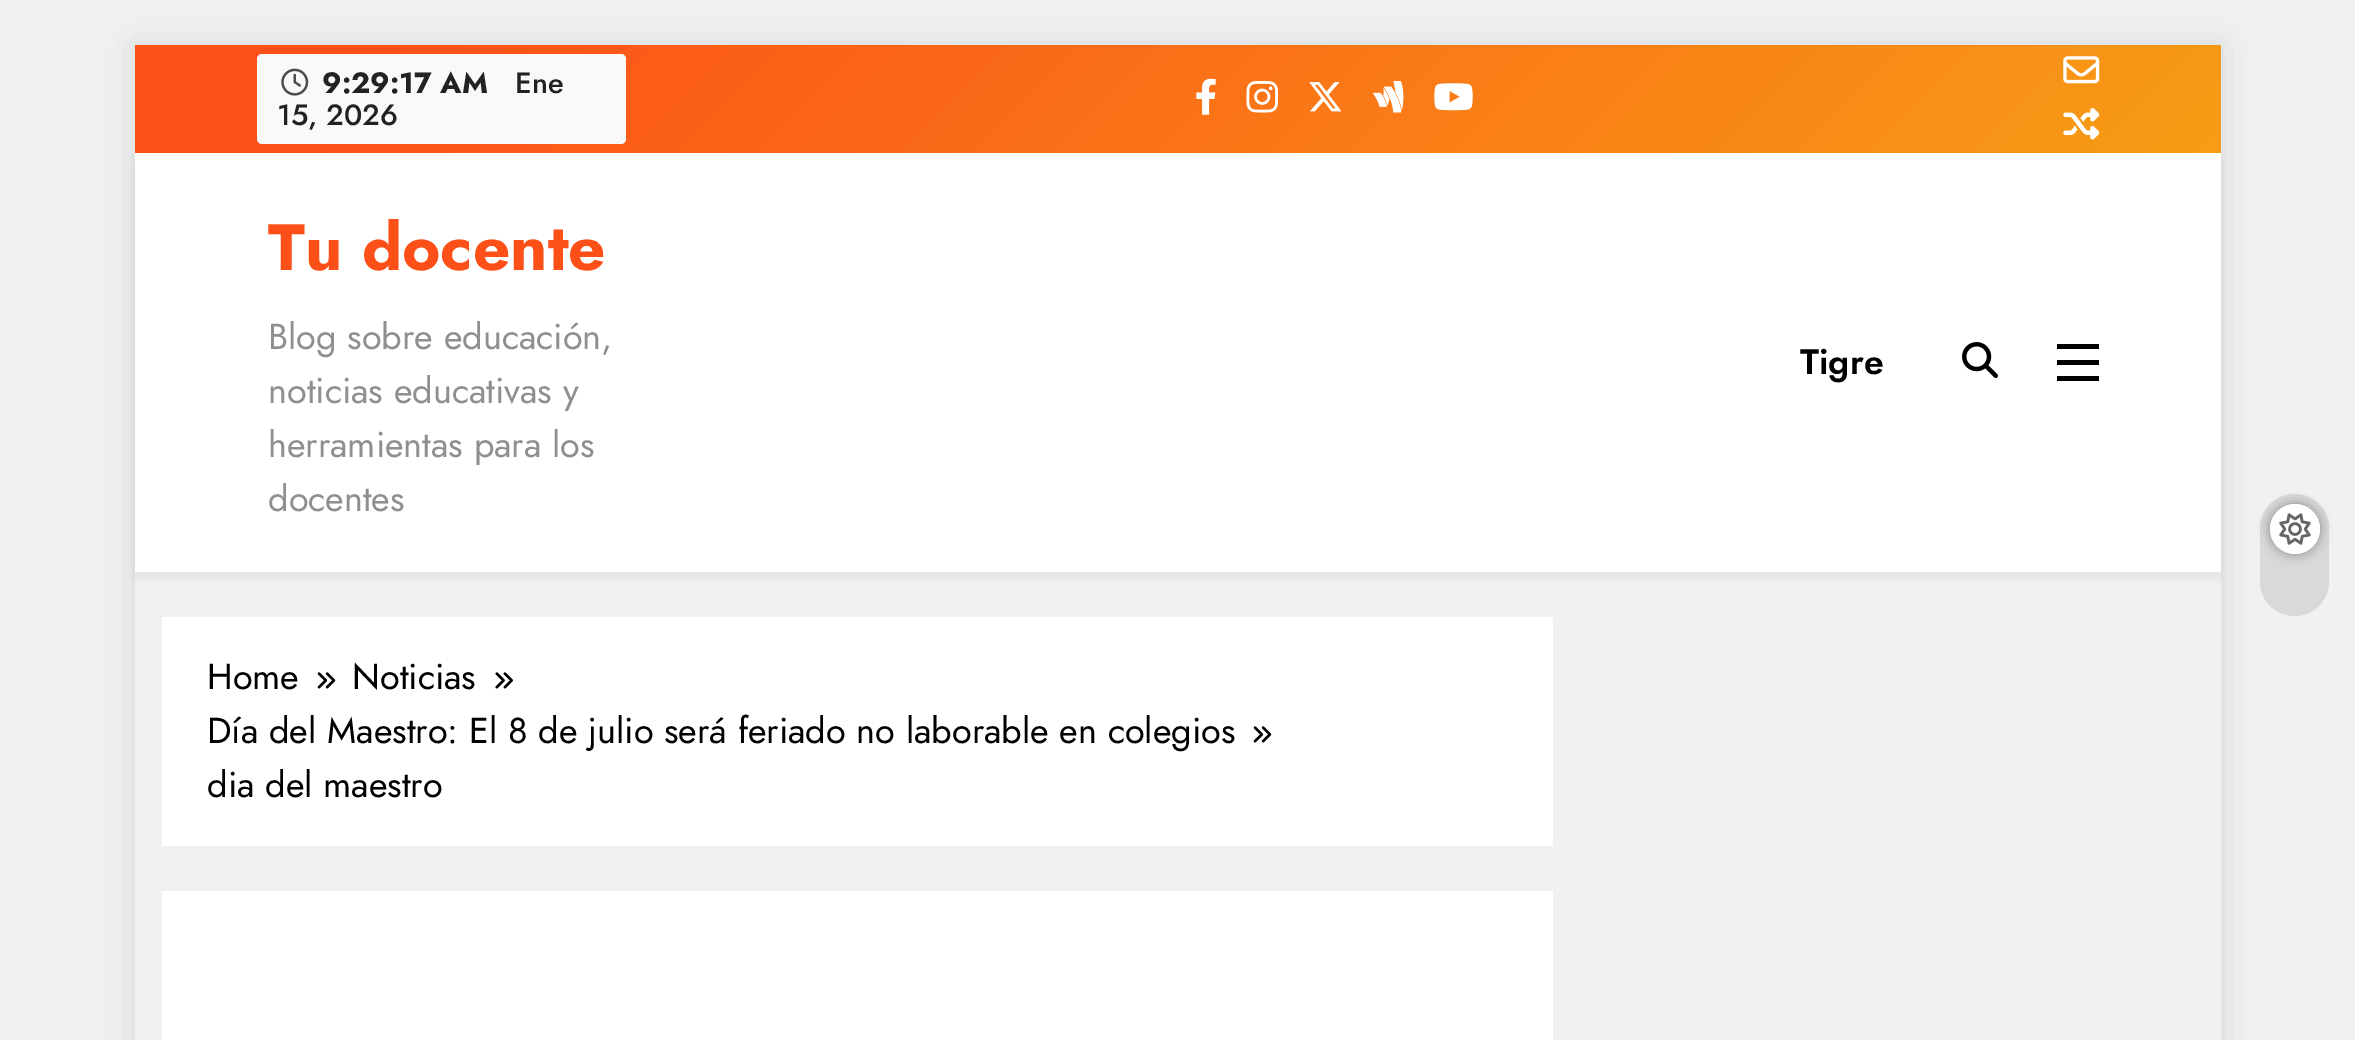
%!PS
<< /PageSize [2355 1040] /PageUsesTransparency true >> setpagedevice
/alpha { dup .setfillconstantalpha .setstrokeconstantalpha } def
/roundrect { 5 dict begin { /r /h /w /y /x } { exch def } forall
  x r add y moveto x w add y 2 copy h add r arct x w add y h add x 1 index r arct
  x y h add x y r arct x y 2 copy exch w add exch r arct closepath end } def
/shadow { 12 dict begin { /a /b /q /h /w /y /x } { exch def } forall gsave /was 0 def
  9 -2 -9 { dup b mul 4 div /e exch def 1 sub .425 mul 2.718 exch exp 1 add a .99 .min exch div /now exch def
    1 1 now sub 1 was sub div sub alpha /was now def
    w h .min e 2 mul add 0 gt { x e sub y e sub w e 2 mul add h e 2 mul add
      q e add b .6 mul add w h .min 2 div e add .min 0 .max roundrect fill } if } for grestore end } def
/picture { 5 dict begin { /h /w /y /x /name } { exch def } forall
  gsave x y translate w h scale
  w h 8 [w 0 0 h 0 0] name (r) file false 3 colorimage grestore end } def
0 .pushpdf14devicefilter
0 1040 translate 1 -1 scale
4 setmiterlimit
0.941 0.945 0.949 setrgbcolor
0 0 2355 1040 rectfill
gsave
newpath 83 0 moveto 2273 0 lineto 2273 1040 lineto 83 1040 lineto closepath 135 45 moveto 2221 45 lineto 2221 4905 lineto 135 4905 lineto closepath eoclip newpath
0 setgray
135 45 2086 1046 0 17 0.1 shadow
grestore
gsave newpath 135 45 moveto 2221 45 lineto 2221 153 lineto 135 153 lineto closepath clip newpath
<< /ShadingType 2 /ColorSpace /DeviceRGB /Coords [629 -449 1726 647] /Extend [true true] /Function << /FunctionType 3 /Domain [0 1] /Functions [<< /FunctionType 2 /Domain [0 1] /C0 [0.992 0.31 0.094] /C1 [0.992 0.31 0.094] /N 1 >> << /FunctionType 2 /Domain [0 1] /C0 [0.992 0.31 0.094] /C1 [0.969 0.616 0.086] /N 1 >>] /Bounds [0.1] /Encode [0 1 0 1] >> >> shfill grestore
0.976 setgray
257 54 369 90 5 roundrect fill
(img1.rgb) 281 68 28 28 picture
/Jost-Bold [29.25 0 0 -29.25 0 0] selectfont
0.133 setgray
322 93 moveto (9:29:17 AM) show
/Jost-Medium [29.25 0 0 -29.25 0 0] selectfont
515 93 moveto (Ene) show
277 125 moveto (15, 2026) show
(img2.rgb) 1196 78 20 37 picture
(img3.rgb) 1246 81 32 32 picture
(img4.rgb) 1309 82 33 30 picture
(img5.rgb) 1373 81 31 32 picture
(img6.rgb) 1434 83 39 28 picture
(img7.rgb) 2063 56 37 28 picture
(img8.rgb) 2063 108 37 32 picture
0 setgray
135 160 2086 418 0 4.5 0.05 shadow
1 setgray
135 153 2086 419 rectfill
/Jost-Bold [65.25 0 0 -65.25 0 0] selectfont
0.992 0.31 0.094 setrgbcolor
268 270 moveto (Tu docente) show
/Jost-Regular [36 0 0 -36 0 0] selectfont
0.561 setgray
268 349 moveto (Blog sobre educación,) show
268 403 moveto (noticias educativas y) show
268 457 moveto (herramientas para los) show
268 511 moveto (docentes) show
/Jost-SemiBold [35.5 0 0 -35.5 0 0] selectfont
0 setgray
1800 374 moveto (Tigre) show
(img9.rgb) 1962 342 36 36 picture
2057 344 42 5 rectfill
2057 360 42 5 rectfill
2057 376 42 5 rectfill
0.847 0.851 0.855 setrgbcolor
newpath 2329 528 moveto 2329 582 lineto 2329 601 2313 616 2295 616 curveto 2276 616 2260 601 2260 582 curveto 2260 528 lineto 2260 509 2276 494 2295 494 curveto 2313 494 2329 509 2329 528 curveto closepath fill
0 setgray
2270 504 50 50 25 5.5 0.35 shadow
1 setgray
newpath 2295 529 25 0 360 arc closepath fill
(img10.rgb) 2279 513 32 32 picture
162 617 1391 229 rectfill
/Jost-Regular [36 0 0 -36 0 0] selectfont
0 setgray
207 689 moveto (Home) show
(img11.rgb) 317 672 19 17 picture
352 689 moveto (Noticias) show
(img12.rgb) 495 672 18 17 picture
207 743 moveto (Día del Maestro: El 8 de julio será feriado no laborable en colegios) show
(img11.rgb) 1253 726 19 17 picture
207 797 moveto (dia del maestro) show
1 setgray
162 891 1391 149 rectfill
.poppdf14devicefilter showpage
